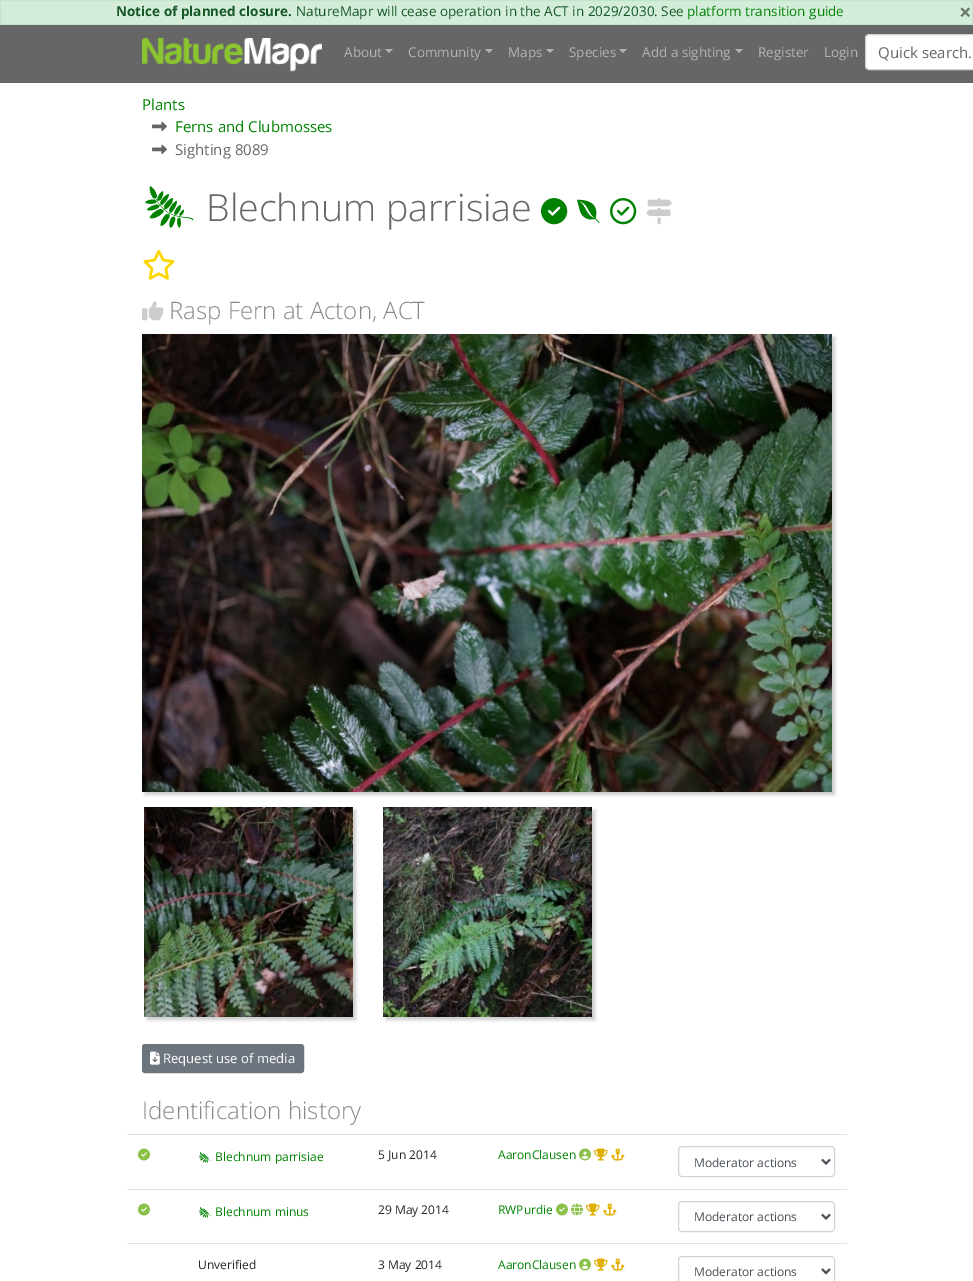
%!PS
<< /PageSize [973 1281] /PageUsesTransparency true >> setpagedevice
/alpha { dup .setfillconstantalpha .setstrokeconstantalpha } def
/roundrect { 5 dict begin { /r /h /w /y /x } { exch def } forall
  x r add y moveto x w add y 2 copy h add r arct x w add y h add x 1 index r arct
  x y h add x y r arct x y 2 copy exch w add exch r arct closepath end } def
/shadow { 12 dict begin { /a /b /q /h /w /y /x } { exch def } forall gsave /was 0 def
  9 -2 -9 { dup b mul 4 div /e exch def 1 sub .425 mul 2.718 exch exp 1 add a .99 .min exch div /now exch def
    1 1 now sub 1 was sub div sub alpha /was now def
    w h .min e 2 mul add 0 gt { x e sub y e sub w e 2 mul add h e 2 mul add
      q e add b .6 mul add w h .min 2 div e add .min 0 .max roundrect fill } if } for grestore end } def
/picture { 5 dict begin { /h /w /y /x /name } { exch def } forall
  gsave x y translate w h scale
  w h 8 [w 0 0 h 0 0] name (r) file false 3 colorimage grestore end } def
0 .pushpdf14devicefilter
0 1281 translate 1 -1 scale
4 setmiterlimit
1 setgray
0 0 973 1281 rectfill
0.831 0.929 0.855 setrgbcolor
newpath 0.5 0.5 moveto 972.5 0.5 lineto 972.5 24.5 lineto 0.5 24.5 lineto closepath gsave fill grestore
0.765 0.902 0.796 setrgbcolor
stroke
/OpenSans-Bold [13.5 0 0 -13.5 0 0] selectfont
0.082 0.341 0.141 setrgbcolor
116 16 moveto (Notice of planned closure.) show
/OpenSans-Regular [13.5 0 0 -13.5 0 0] selectfont
296 16 moveto (NatureMapr will cease operation in the ACT in 2029/2030. See) show
0 0.51 0 setrgbcolor
687 16 moveto (platform transition guide) show
/OpenSans-Bold [22 0 0 -22 0 0] selectfont
0.416 0.467 0.427 setrgbcolor
959 20 moveto (×) show
0.4 setgray
0 25 973 58 rectfill
(img1.rgb) 142 38 180 34 picture
/OpenSans-Regular [13.5 0 0 -13.5 0 0] selectfont
0.702 setgray
344 57 moveto (About) show
newpath 385 49 moveto 393 49 lineto 389 53 lineto closepath fill
408 57 moveto (Community) show
newpath 485 49 moveto 493 49 lineto 489 53 lineto closepath fill
508 57 moveto (Maps) show
newpath 546 49 moveto 554 49 lineto 550 53 lineto closepath fill
569 57 moveto (Species) show
newpath 619 49 moveto 627 49 lineto 623 53 lineto closepath fill
642 57 moveto (Add a sighting) show
newpath 735 49 moveto 743 49 lineto 739 53 lineto closepath fill
758 57 moveto (Register) show
824 57 moveto (Login) show
1 setgray
866 35 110 34 3 roundrect fill
0.808 0.831 0.855 setrgbcolor
865.5 34.5 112 35 3.5 roundrect stroke
/OpenSans-Regular [15 0 0 -15 0 0] selectfont
0.4 setgray
878 58 moveto (Quick search.) show
0 0.51 0 setrgbcolor
142 110 moveto (Plants) show
(img2.rgb) 152 121 15 10 picture
175 132 moveto (Ferns and Clubmosses) show
(img2.rgb) 152 144 15 10 picture
0.4 setgray
175 155 moveto (Sighting 8089) show
(img3.rgb) 145 186 49 43 picture
/OpenSans-Light [37.5 0 0 -37.5 0 0] selectfont
206 221 moveto (Blechnum parrisiae) show
(img4.rgb) 541 198 27 27 picture
(img5.rgb) 577 199 23 24 picture
(img6.rgb) 610 198 27 27 picture
(img7.rgb) 646 198 26 27 picture
(img8.rgb) 143 249 32 31 picture
(img9.rgb) 142 301 22 20 picture
/OpenSans-Light [24 0 0 -24 0 0] selectfont
0.533 setgray
169 319 moveto (Rasp Fern at Acton, ACT) show
0.8 setgray
145 337 690 458 0 1.5 1 shadow
(img10.rgb) 142 334 690 458 picture
147 810 209 210 0 1.5 1 shadow
(img11.rgb) 144 807 209 210 picture
386 810 209 210 0 1.5 1 shadow
(img12.rgb) 383 807 209 210 picture
0.424 0.459 0.49 setrgbcolor
142.5 1044.5 161 28 2.5 roundrect gsave fill grestore
stroke
(img13.rgb) 150 1051 10 14 picture
/OpenSans-Regular [13.1 0 0 -13.1 0 0] selectfont
1 setgray
163 1063 moveto (Request use of media) show
/OpenSans-Light [24 0 0 -24 0 0] selectfont
0.533 setgray
142 1119 moveto (Identification history) show
0.871 0.886 0.902 setrgbcolor
127 1134 720 1 rectfill
(img14.rgb) 138 1148 12 13 picture
(img15.rgb) 198 1152 14 11 picture
/OpenSans-Regular [12 0 0 -12 0 0] selectfont
0 0.51 0 setrgbcolor
215 1161 moveto (Blechnum parrisiae) show
0.129 0.145 0.161 setrgbcolor
378 1159 moveto (5 Jun 2014) show
0 0.51 0 setrgbcolor
498 1159 moveto (AaronClausen) show
(img16.rgb) 579 1148 12 13 picture
(img17.rgb) 594 1148 14 13 picture
(img18.rgb) 611 1148 14 13 picture
0.808 0.831 0.855 setrgbcolor
678.5 1146.5 156 30 3.5 roundrect stroke
0.286 0.314 0.341 setrgbcolor
2 setlinewidth
newpath 822 1159.5 moveto 826 1163.5 lineto 830 1159.5 lineto stroke
694 1167 moveto (Moderator actions) show
0.871 0.886 0.902 setrgbcolor
127 1189 720 1 rectfill
(img14.rgb) 138 1203 12 13 picture
(img15.rgb) 198 1207 14 11 picture
0 0.51 0 setrgbcolor
215 1216 moveto (Blechnum minus) show
0.129 0.145 0.161 setrgbcolor
378 1214 moveto (29 May 2014) show
0 0.51 0 setrgbcolor
498 1214 moveto (RWPurdie) show
(img14.rgb) 556 1203 12 13 picture
(img19.rgb) 571 1203 12 13 picture
(img17.rgb) 586 1203 14 13 picture
(img18.rgb) 603 1203 14 13 picture
0.808 0.831 0.855 setrgbcolor
1 setlinewidth
678.5 1201.5 156 30 3.5 roundrect stroke
0.286 0.314 0.341 setrgbcolor
2 setlinewidth
newpath 822 1214.5 moveto 826 1218.5 lineto 830 1214.5 lineto stroke
694 1221 moveto (Moderator actions) show
0.871 0.886 0.902 setrgbcolor
127 1243 720 1 rectfill
0.129 0.145 0.161 setrgbcolor
198 1269 moveto (Unverified) show
378 1269 moveto (3 May 2014) show
0 0.51 0 setrgbcolor
498 1269 moveto (AaronClausen) show
(img16.rgb) 579 1258 12 13 picture
(img17.rgb) 594 1258 14 13 picture
(img18.rgb) 611 1258 14 13 picture
0.808 0.831 0.855 setrgbcolor
1 setlinewidth
678.5 1256.5 156 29 3.5 roundrect stroke
0.286 0.314 0.341 setrgbcolor
2 setlinewidth
newpath 822 1269 moveto 826 1273 lineto 830 1269 lineto stroke
694 1276 moveto (Moderator actions) show
.poppdf14devicefilter showpage
